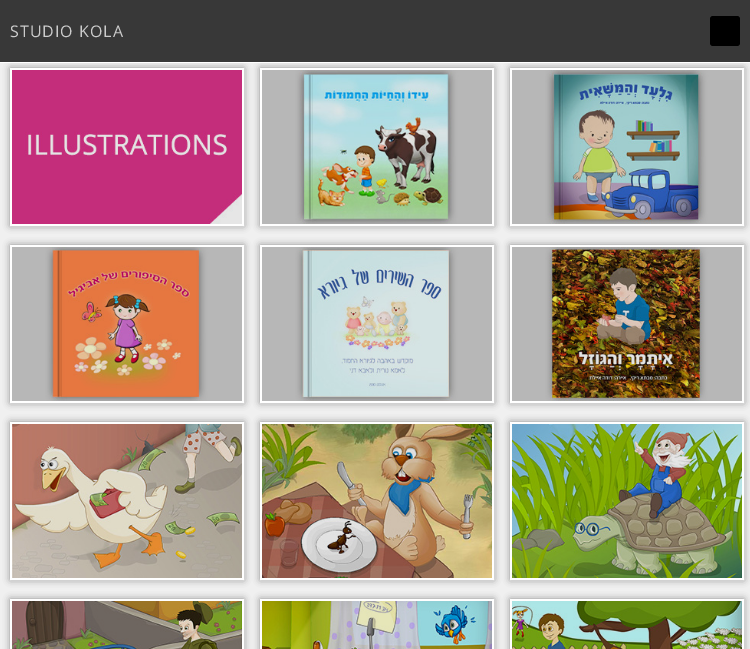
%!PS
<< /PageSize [750 649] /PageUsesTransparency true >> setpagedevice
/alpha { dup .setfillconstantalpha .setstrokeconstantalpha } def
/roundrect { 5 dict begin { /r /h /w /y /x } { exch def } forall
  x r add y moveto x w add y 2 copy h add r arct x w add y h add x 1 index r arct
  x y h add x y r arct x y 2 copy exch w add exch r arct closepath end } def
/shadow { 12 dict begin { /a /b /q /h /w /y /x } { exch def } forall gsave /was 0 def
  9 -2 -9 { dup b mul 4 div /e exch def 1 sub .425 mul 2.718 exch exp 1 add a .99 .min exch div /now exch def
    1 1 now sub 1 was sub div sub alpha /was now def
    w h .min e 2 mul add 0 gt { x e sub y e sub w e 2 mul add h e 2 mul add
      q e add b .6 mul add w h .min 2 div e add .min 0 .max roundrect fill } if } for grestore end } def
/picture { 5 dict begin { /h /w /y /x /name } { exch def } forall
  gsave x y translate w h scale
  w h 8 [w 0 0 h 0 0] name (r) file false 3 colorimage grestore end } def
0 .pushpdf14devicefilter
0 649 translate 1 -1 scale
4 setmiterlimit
0.941 setgray
0 0 750 649 rectfill
gsave
newpath 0 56 moveto 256 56 lineto 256 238 lineto 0 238 lineto closepath 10 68 moveto 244 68 lineto 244 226 lineto 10 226 lineto closepath eoclip newpath
0 setgray
10 68 234 158 0 3.5 0.4 shadow
grestore
gsave
newpath 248 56 moveto 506 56 lineto 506 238 lineto 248 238 lineto closepath 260 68 moveto 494 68 lineto 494 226 lineto 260 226 lineto closepath eoclip newpath
0 setgray
260 68 234 158 0 3.5 0.4 shadow
grestore
gsave
newpath 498 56 moveto 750 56 lineto 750 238 lineto 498 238 lineto closepath 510 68 moveto 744 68 lineto 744 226 lineto 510 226 lineto closepath eoclip newpath
0 setgray
510 68 234 158 0 3.5 0.4 shadow
grestore
0.22 setgray
0 0 750 62 rectfill
1 setgray
0 62 750 1 rectfill
/OpenSans-Regular [16 0 0 -16 0 0] selectfont
0.8 setgray
10 37 moveto 1 0 (STUDIO KOLA) ashow
0 setgray
710 16 30 30 3 roundrect fill
1 setgray
2 setlinewidth
11 69 232 156 rectstroke
(img1.rgb) 12 70 230 154 picture
261 69 232 156 rectstroke
(img2.rgb) 262 70 230 154 picture
511 69 232 156 rectstroke
(img3.rgb) 512 70 230 154 picture
gsave
newpath 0 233 moveto 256 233 lineto 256 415 lineto 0 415 lineto closepath 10 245 moveto 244 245 lineto 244 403 lineto 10 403 lineto closepath eoclip newpath
0 setgray
10 245 234 158 0 3.5 0.4 shadow
grestore
11 246 232 156 rectstroke
(img4.rgb) 12 247 230 154 picture
gsave
newpath 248 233 moveto 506 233 lineto 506 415 lineto 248 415 lineto closepath 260 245 moveto 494 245 lineto 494 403 lineto 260 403 lineto closepath eoclip newpath
0 setgray
260 245 234 158 0 3.5 0.4 shadow
grestore
261 246 232 156 rectstroke
(img5.rgb) 262 247 230 154 picture
gsave
newpath 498 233 moveto 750 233 lineto 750 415 lineto 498 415 lineto closepath 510 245 moveto 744 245 lineto 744 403 lineto 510 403 lineto closepath eoclip newpath
0 setgray
510 245 234 158 0 3.5 0.4 shadow
grestore
511 246 232 156 rectstroke
(img6.rgb) 512 247 230 154 picture
gsave
newpath 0 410 moveto 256 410 lineto 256 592 lineto 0 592 lineto closepath 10 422 moveto 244 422 lineto 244 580 lineto 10 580 lineto closepath eoclip newpath
0 setgray
10 422 234 158 0 3.5 0.4 shadow
grestore
11 423 232 156 rectstroke
(img7.rgb) 12 424 230 154 picture
gsave
newpath 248 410 moveto 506 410 lineto 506 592 lineto 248 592 lineto closepath 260 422 moveto 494 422 lineto 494 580 lineto 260 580 lineto closepath eoclip newpath
0 setgray
260 422 234 158 0 3.5 0.4 shadow
grestore
261 423 232 156 rectstroke
(img8.rgb) 262 424 230 154 picture
gsave
newpath 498 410 moveto 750 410 lineto 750 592 lineto 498 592 lineto closepath 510 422 moveto 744 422 lineto 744 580 lineto 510 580 lineto closepath eoclip newpath
0 setgray
510 422 234 158 0 3.5 0.4 shadow
grestore
511 423 232 156 rectstroke
(img9.rgb) 512 424 230 154 picture
gsave
newpath 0 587 moveto 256 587 lineto 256 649 lineto 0 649 lineto closepath 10 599 moveto 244 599 lineto 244 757 lineto 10 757 lineto closepath eoclip newpath
0 setgray
10 599 234 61 0 3.5 0.4 shadow
grestore
11 600 232 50 rectstroke
(img10.rgb) 12 601 230 48 picture
gsave
newpath 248 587 moveto 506 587 lineto 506 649 lineto 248 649 lineto closepath 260 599 moveto 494 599 lineto 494 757 lineto 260 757 lineto closepath eoclip newpath
0 setgray
260 599 234 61 0 3.5 0.4 shadow
grestore
261 600 232 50 rectstroke
(img11.rgb) 262 601 230 48 picture
gsave
newpath 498 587 moveto 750 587 lineto 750 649 lineto 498 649 lineto closepath 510 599 moveto 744 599 lineto 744 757 lineto 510 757 lineto closepath eoclip newpath
0 setgray
510 599 234 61 0 3.5 0.4 shadow
grestore
511 600 232 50 rectstroke
(img12.rgb) 512 601 230 48 picture
.poppdf14devicefilter showpage
